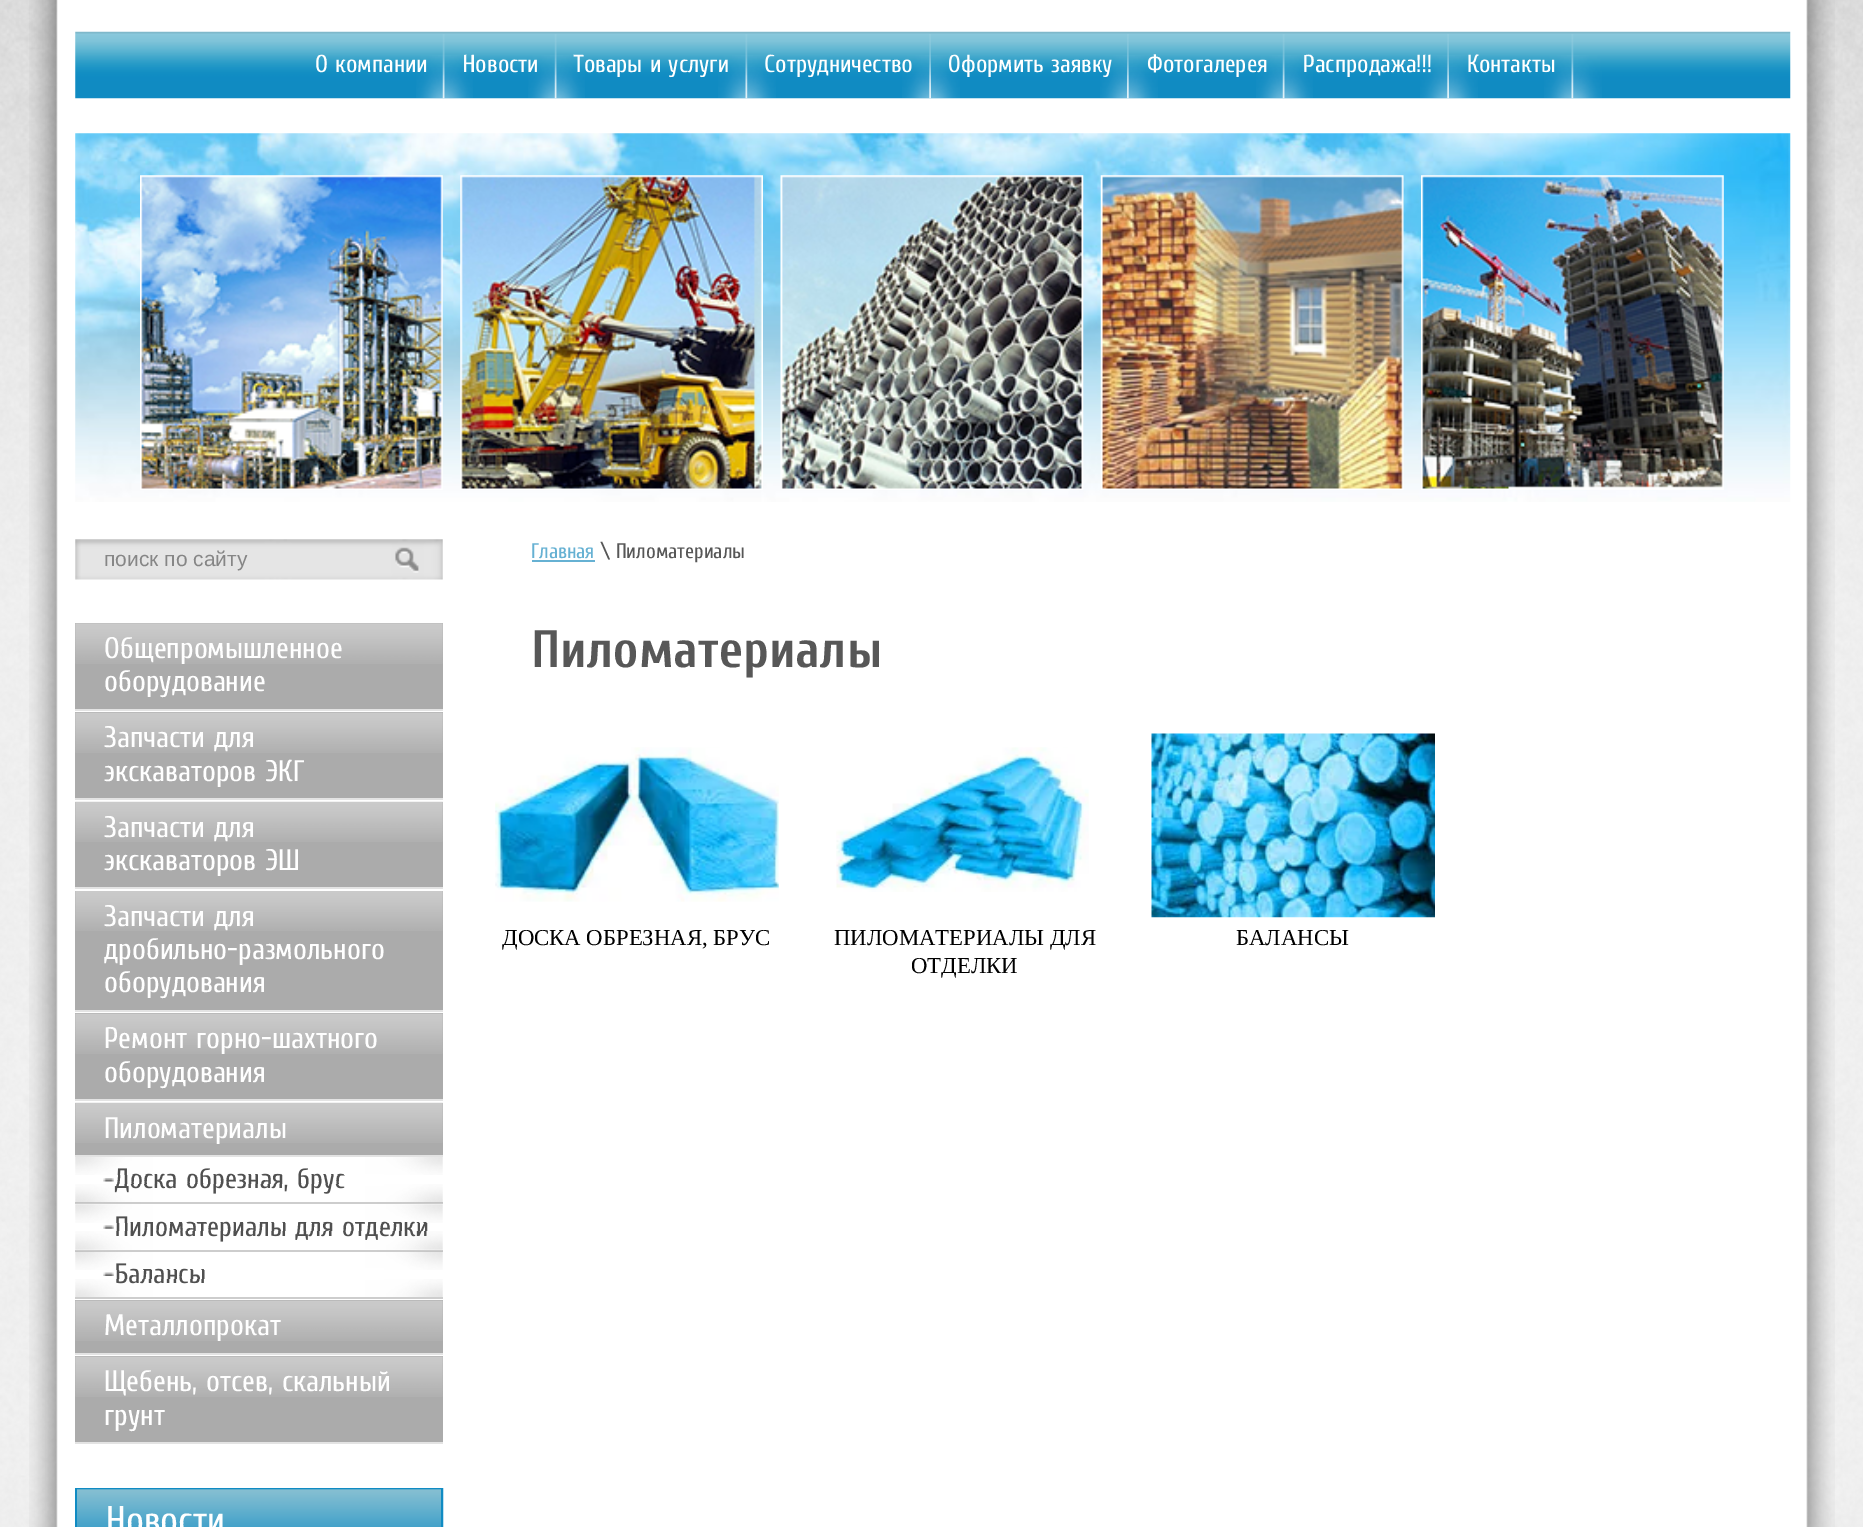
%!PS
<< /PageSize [1863 1527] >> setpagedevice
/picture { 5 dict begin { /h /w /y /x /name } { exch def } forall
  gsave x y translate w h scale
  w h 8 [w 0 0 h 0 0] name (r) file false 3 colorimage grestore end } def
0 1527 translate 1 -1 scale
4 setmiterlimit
1 setgray
0 0 1863 1527 rectfill
(img1.rgb) 0 0 1863 1527 picture
(img2.rgb) 29 0 1806 1527 picture
(img3.rgb) 75 31 1716 68 picture
(img4.rgb) 442 34 3 65 picture
/Cuprum-Regular [24.5 0 0 -24.5 0 0] selectfont
315 72 moveto (О компании) show
(img5.rgb) 416 55 29 44 picture
(img6.rgb) 554 34 3 65 picture
463 72 moveto (Новости) show
(img7.rgb) 444 55 29 44 picture
(img8.rgb) 528 55 29 44 picture
(img9.rgb) 745 34 3 65 picture
573 72 moveto (Товары и услуги) show
(img10.rgb) 556 55 29 44 picture
(img11.rgb) 718 55 30 44 picture
(img12.rgb) 929 34 2 65 picture
764 72 moveto (Сотрудничество) show
(img13.rgb) 747 55 29 44 picture
(img14.rgb) 902 55 29 44 picture
(img15.rgb) 1127 34 2 65 picture
948 72 moveto (Оформить заявку) show
(img16.rgb) 931 55 29 44 picture
(img17.rgb) 1100 55 29 44 picture
(img18.rgb) 1282 34 3 65 picture
1147 72 moveto (Фотогалерея) show
(img19.rgb) 1128 55 30 44 picture
(img20.rgb) 1256 55 29 44 picture
(img12.rgb) 1447 34 2 65 picture
1303 72 moveto (Распродажа!!!) show
(img21.rgb) 1284 55 29 44 picture
(img22.rgb) 1420 55 29 44 picture
(img23.rgb) 1571 34 3 65 picture
1467 72 moveto (Контакты) show
(img24.rgb) 1449 55 29 44 picture
(img26.rgb) 1573 55 29 44 picture
(img25.rgb) 1544 55 30 44 picture
(img27.rgb) 75 133 1716 369 picture
(img28.rgb) 140 175 303 315 picture
(img29.rgb) 460 175 303 315 picture
(img30.rgb) 780 175 304 315 picture
(img31.rgb) 1100 175 304 315 picture
(img32.rgb) 1421 175 303 315 picture
(img33.rgb) 75 539 368 41 picture
/LiberationSans-Regular [21 0 0 -21 0 0] selectfont
0.525 setgray
104 566 moveto (поиск по сайту) show
0.671 setgray
75 623 368 86 rectfill
(img34.rgb) 75 623 368 41 picture
0.89 setgray
75 709 368 2 rectfill
/Cuprum-Regular [29.75 0 0 -29.75 0 0] selectfont
1 setgray
104 658 moveto (Общепромышленное) show
104 691 moveto (оборудование) show
0.671 setgray
75 712 368 86 rectfill
(img35.rgb) 75 712 368 41 picture
0.89 setgray
75 798 368 2 rectfill
1 setgray
104 747 moveto (Запчасти для) show
104 781 moveto (экскаваторов ЭКГ) show
0.671 setgray
75 802 368 85 rectfill
(img36.rgb) 75 801 368 41 picture
0.89 setgray
75 887 368 2 rectfill
1 setgray
104 837 moveto (Запчасти для) show
104 870 moveto (экскаваторов ЭШ) show
0.671 setgray
75 891 368 119 rectfill
(img37.rgb) 75 891 368 40 picture
0.89 setgray
75 1010 368 2 rectfill
1 setgray
104 926 moveto (Запчасти для) show
104 959 moveto (дробильно-размольного) show
104 992 moveto (оборудования) show
0.671 setgray
75 1013 368 86 rectfill
(img35.rgb) 75 1013 368 41 picture
0.89 setgray
75 1099 368 2 rectfill
1 setgray
104 1048 moveto (Ремонт горно-шахтного) show
104 1082 moveto (оборудования) show
0.671 setgray
75 1103 368 52 rectfill
(img38.rgb) 75 1102 368 41 picture
0.89 setgray
75 1155 368 2 rectfill
1 setgray
104 1138 moveto (Пиломатериалы) show
(img39.rgb) 103 1178 11 4 picture
0.804 setgray
75 1202 368 2 rectfill
/Cuprum-Regular [28 0 0 -28 0 0] selectfont
0.314 setgray
115 1188 moveto (Доска обрезная, брус) show
(img40.rgb) 75 1157 368 18 picture
(img41.rgb) 75 1184 368 19 picture
(img42.rgb) 103 1225 11 4 picture
0.804 setgray
75 1250 368 2 rectfill
0.314 setgray
115 1236 moveto (Пиломатериалы для отделки) show
(img43.rgb) 75 1204 368 19 picture
(img44.rgb) 75 1231 368 19 picture
(img45.rgb) 103 1272 11 4 picture
0.804 setgray
75 1297 368 2 rectfill
0.314 setgray
115 1283 moveto (Балансы) show
(img46.rgb) 75 1251 368 19 picture
(img47.rgb) 75 1279 368 18 picture
0.671 setgray
75 1300 368 53 rectfill
(img48.rgb) 75 1300 368 41 picture
0.89 setgray
75 1353 368 2 rectfill
/Cuprum-Regular [29.75 0 0 -29.75 0 0] selectfont
1 setgray
104 1335 moveto (Металлопрокат) show
0.671 setgray
75 1356 368 86 rectfill
(img48.rgb) 75 1356 368 41 picture
0.89 setgray
75 1442 368 2 rectfill
1 setgray
104 1391 moveto (Щебень, отсев, скальный) show
104 1425 moveto (грунт) show
0.063 0.545 0.765 setrgbcolor
2 setlinewidth
76 1489 366 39 rectstroke
0.227 0.62 0.784 setrgbcolor
77 1489 364 1 rectfill
(img49.rgb) 77 1489 364 38 picture
/Cuprum-Regular [38.5 0 0 -38.5 0 0] selectfont
1 setgray
106 1533 moveto (Новости) show
/Cuprum-Regular [21 0 0 -21 0 0] selectfont
0.4 0.694 0.827 setrgbcolor
531 558 moveto (Главная) show
532 560 63 2 rectfill
0.341 setgray
601 558 moveto (\\ Пиломатериалы) show
/Cuprum-Bold [52.5 0 0 -52.5 0 0] selectfont
531 667 moveto (Пиломатериалы) show
(img50.rgb) 495 747 284 155 picture
/LiberationSerif-Regular [22.75 0 0 -22.75 0 0] selectfont
0 setgray
502 945 moveto (ДОСКА ОБРЕЗНАЯ, БРУС) show
(img51.rgb) 836 747 253 145 picture
834 945 moveto (ПИЛОМАТЕРИАЛЫ ДЛЯ) show
911 973 moveto (ОТДЕЛКИ) show
(img52.rgb) 1151 733 284 185 picture
1236 945 moveto (БАЛАНСЫ) show
showpage
